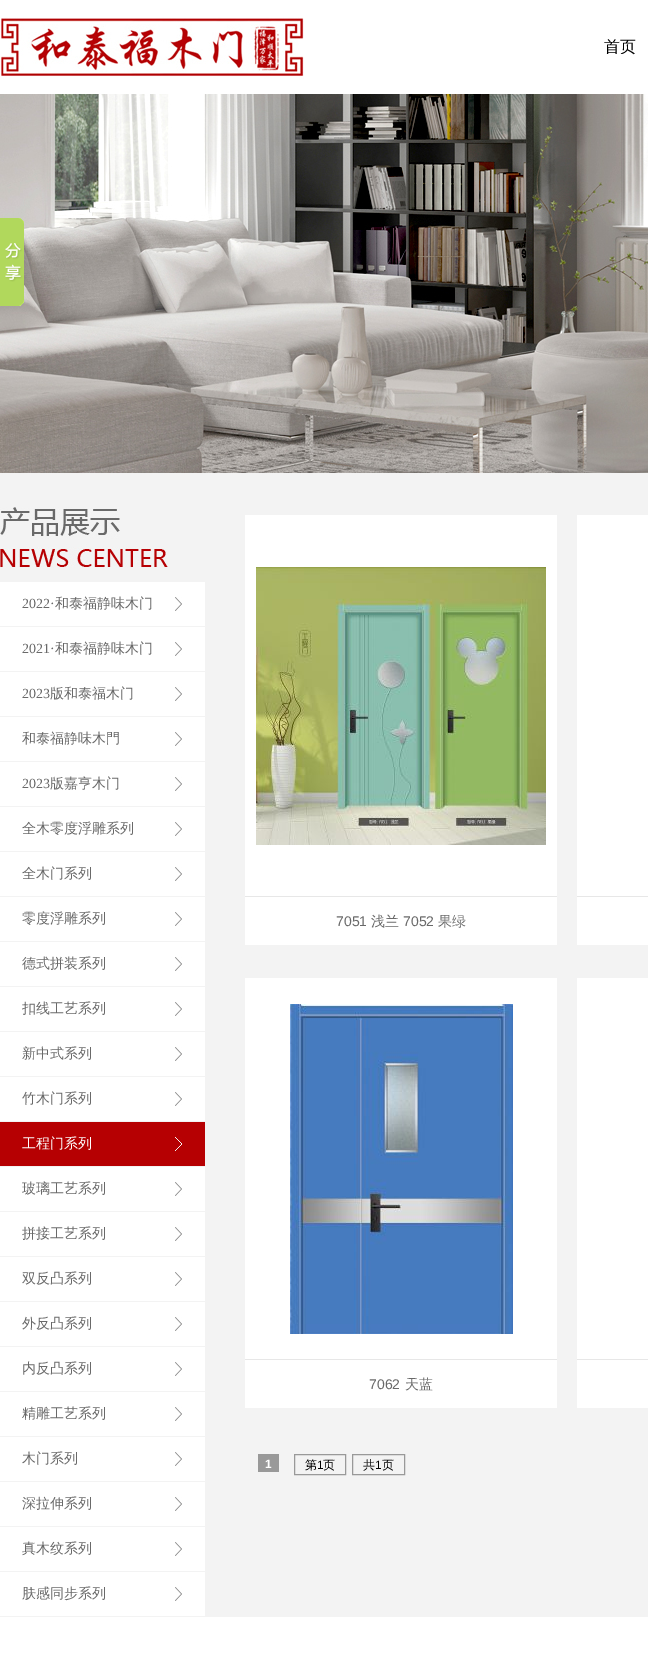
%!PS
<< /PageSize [648 1662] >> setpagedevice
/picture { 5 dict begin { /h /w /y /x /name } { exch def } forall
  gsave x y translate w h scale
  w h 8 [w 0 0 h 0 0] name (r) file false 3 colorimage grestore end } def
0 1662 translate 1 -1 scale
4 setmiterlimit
0.953 setgray
0 0 648 1662 rectfill
1 setgray
0 0 648 94 rectfill
(img1.rgb) 0 17 304 63 picture
/WenQuanYiZenHei-Medium [16 0 0 -16 0 0] selectfont
0 setgray
604 52 moveto (首页) show
(img2.rgb) 0 94 648 379 picture
(img3.rgb) 0 218 24 88 picture
(img4.rgb) 0 507 168 61 picture
1 setgray
0 582 205 44 rectfill
(img5.rgb) 175 597 7 14 picture
/LiberationSerif-Regular [14 0 0 -14 0 0] selectfont
0.412 setgray
22 608 moveto (2022·) show
/WenQuanYiZenHei-Medium [14 0 0 -14 0 0] selectfont
55 608 moveto (和泰福静味木门) show
1 setgray
0 627 205 44 rectfill
(img5.rgb) 175 642 7 14 picture
/LiberationSerif-Regular [14 0 0 -14 0 0] selectfont
0.412 setgray
22 653 moveto (2021·) show
/WenQuanYiZenHei-Medium [14 0 0 -14 0 0] selectfont
55 653 moveto (和泰福静味木门) show
1 setgray
0 672 205 44 rectfill
(img5.rgb) 175 687 7 14 picture
/LiberationSerif-Regular [14 0 0 -14 0 0] selectfont
0.412 setgray
22 698 moveto (2023) show
/WenQuanYiZenHei-Medium [14 0 0 -14 0 0] selectfont
50 698 moveto (版和泰福木门) show
1 setgray
0 717 205 44 rectfill
(img5.rgb) 175 732 7 14 picture
0.412 setgray
22 743 moveto (和泰福静味木門) show
1 setgray
0 762 205 44 rectfill
(img5.rgb) 175 777 7 14 picture
/LiberationSerif-Regular [14 0 0 -14 0 0] selectfont
0.412 setgray
22 788 moveto (2023) show
/WenQuanYiZenHei-Medium [14 0 0 -14 0 0] selectfont
50 788 moveto (版嘉亨木门) show
1 setgray
0 807 205 44 rectfill
(img5.rgb) 175 822 7 14 picture
0.412 setgray
22 833 moveto (全木零度浮雕系列) show
1 setgray
0 852 205 44 rectfill
(img5.rgb) 175 867 7 14 picture
0.412 setgray
22 878 moveto (全木门系列) show
1 setgray
0 897 205 44 rectfill
(img5.rgb) 175 912 7 14 picture
0.412 setgray
22 923 moveto (零度浮雕系列) show
1 setgray
0 942 205 44 rectfill
(img5.rgb) 175 957 7 14 picture
0.412 setgray
22 968 moveto (德式拼装系列) show
1 setgray
0 987 205 44 rectfill
(img5.rgb) 175 1002 7 14 picture
0.412 setgray
22 1013 moveto (扣线工艺系列) show
1 setgray
0 1032 205 44 rectfill
(img5.rgb) 175 1047 7 14 picture
0.412 setgray
22 1058 moveto (新中式系列) show
1 setgray
0 1077 205 44 rectfill
(img5.rgb) 175 1092 7 14 picture
0.412 setgray
22 1103 moveto (竹木门系列) show
0.714 0 0.008 setrgbcolor
0 1122 205 44 rectfill
(img6.rgb) 175 1137 7 14 picture
1 setgray
22 1148 moveto (工程门系列) show
0 1167 205 44 rectfill
(img5.rgb) 175 1182 7 14 picture
0.412 setgray
22 1193 moveto (玻璃工艺系列) show
1 setgray
0 1212 205 44 rectfill
(img5.rgb) 175 1227 7 14 picture
0.412 setgray
22 1238 moveto (拼接工艺系列) show
1 setgray
0 1257 205 44 rectfill
(img5.rgb) 175 1272 7 14 picture
0.412 setgray
22 1283 moveto (双反凸系列) show
1 setgray
0 1302 205 44 rectfill
(img5.rgb) 175 1317 7 14 picture
0.412 setgray
22 1328 moveto (外反凸系列) show
1 setgray
0 1347 205 44 rectfill
(img5.rgb) 175 1362 7 14 picture
0.412 setgray
22 1373 moveto (内反凸系列) show
1 setgray
0 1392 205 44 rectfill
(img5.rgb) 175 1407 7 14 picture
0.412 setgray
22 1418 moveto (精雕工艺系列) show
1 setgray
0 1437 205 44 rectfill
(img5.rgb) 175 1452 7 14 picture
0.412 setgray
22 1463 moveto (木门系列) show
1 setgray
0 1482 205 44 rectfill
(img5.rgb) 175 1497 7 14 picture
0.412 setgray
22 1508 moveto (深拉伸系列) show
1 setgray
0 1527 205 44 rectfill
(img5.rgb) 175 1542 7 14 picture
0.412 setgray
22 1553 moveto (真木纹系列) show
1 setgray
0 1572 205 44 rectfill
(img5.rgb) 175 1587 7 14 picture
0.412 setgray
22 1598 moveto (肤感同步系列) show
1 setgray
245 515 312 430 rectfill
(img7.rgb) 256 567 290 278 picture
0.906 setgray
245 896 312 1 rectfill
/LiberationSans-Regular [14 0 0 -14 0 0] selectfont
0.412 setgray
336 926 moveto (7051) show
/WenQuanYiZenHei-Medium [14 0 0 -14 0 0] selectfont
371 926 moveto (浅兰) show
/LiberationSans-Regular [14 0 0 -14 0 0] selectfont
403 926 moveto (7052) show
/WenQuanYiZenHei-Medium [14 0 0 -14 0 0] selectfont
438 926 moveto (果绿) show
1 setgray
577 515 71 430 rectfill
0.906 setgray
577 896 71 1 rectfill
1 setgray
245 978 312 430 rectfill
(img8.rgb) 290 1004 223 330 picture
0.906 setgray
245 1359 312 1 rectfill
/LiberationSans-Regular [14 0 0 -14 0 0] selectfont
0.412 setgray
369 1389 moveto (7062) show
/WenQuanYiZenHei-Medium [14 0 0 -14 0 0] selectfont
405 1389 moveto (天蓝) show
1 setgray
577 978 71 430 rectfill
0.906 setgray
577 1359 71 1 rectfill
0.6 setgray
258 1454 21 18 rectfill
/LiberationSans-Bold [12 0 0 -12 0 0] selectfont
1 setgray
265 1468 moveto (1) show
0.6 setgray
294.5 1454.5 51 20 rectstroke
/WenQuanYiZenHei-Medium [12 0 0 -12 0 0] selectfont
0 setgray
305 1469 moveto (第) show
/LiberationSans-Regular [12 0 0 -12 0 0] selectfont
317 1469 moveto (1) show
/WenQuanYiZenHei-Medium [12 0 0 -12 0 0] selectfont
323 1469 moveto (页) show
0.6 setgray
352.5 1454.5 52 20 rectstroke
0 setgray
363 1469 moveto (共) show
/LiberationSans-Regular [12 0 0 -12 0 0] selectfont
375 1469 moveto (1) show
/WenQuanYiZenHei-Medium [12 0 0 -12 0 0] selectfont
382 1469 moveto (页) show
1 setgray
0 1617 648 45 rectfill
showpage
